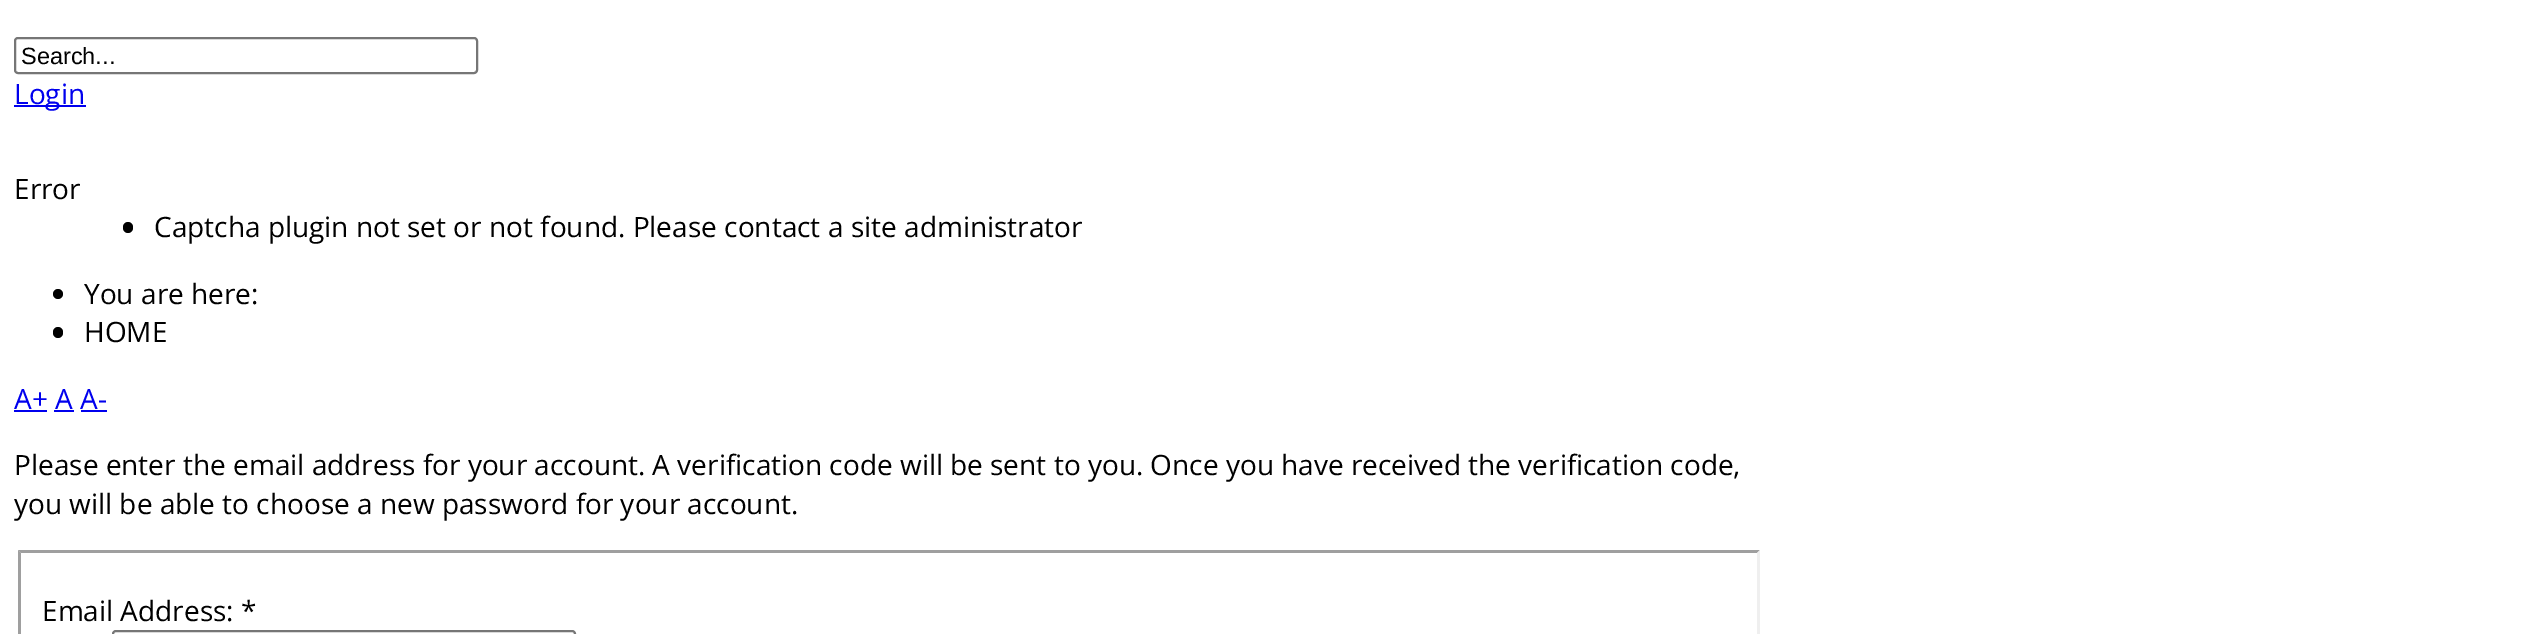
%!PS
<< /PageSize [2539 634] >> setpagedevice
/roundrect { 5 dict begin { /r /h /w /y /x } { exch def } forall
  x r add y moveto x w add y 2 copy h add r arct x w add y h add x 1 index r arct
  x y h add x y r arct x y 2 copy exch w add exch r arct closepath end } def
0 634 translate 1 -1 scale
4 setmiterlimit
1 setgray
0 0 2539 634 rectfill
0.463 setgray
2 setlinewidth
15 38 462 35 3 roundrect stroke
/LiberationSans-Regular [23.5 0 0 -23.5 0 0] selectfont
0 setgray
21 64 moveto (Search...) show
0 0 0.933 setrgbcolor
14 105 72 2 rectfill
/OpenSans-Regular [28 0 0 -28 0 0] selectfont
14 104 moveto (Login) show
0 setgray
14 199 moveto (Error) show
123 222 10 11 5 roundrect fill
154 237 moveto (Captcha plugin not set or not found. Please contact a site administrator) show
newpath 58 294 5 0 360 arc closepath fill
84 304 moveto (You are here:) show
53 327 10 11 5 roundrect fill
84 342 moveto (HOME) show
0 0 0.933 setrgbcolor
14 409 moveto (A+ A A-) show
14 410 33 2 rectfill
54 410 20 2 rectfill
81 410 26 2 rectfill
0 setgray
14 475 moveto (Please enter the email address for your account. A verification code will be sent to you. Once you have received the verification code,) show
14 514 moveto (you will be able to choose a new password for your account.) show
0.624 setgray
newpath 18 550 moveto 1760 550 lineto 1757 553 lineto 21 553 lineto closepath fill
0.937 setgray
newpath 1760 550 moveto 1760 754 lineto 1757 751 lineto 1757 553 lineto closepath fill
0.624 setgray
newpath 18 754 moveto 18 550 lineto 21 553 lineto 21 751 lineto closepath fill
0 setgray
42 621 moveto (Email Address: *) show
0.463 setgray
113 631 462 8 3 roundrect stroke
showpage
